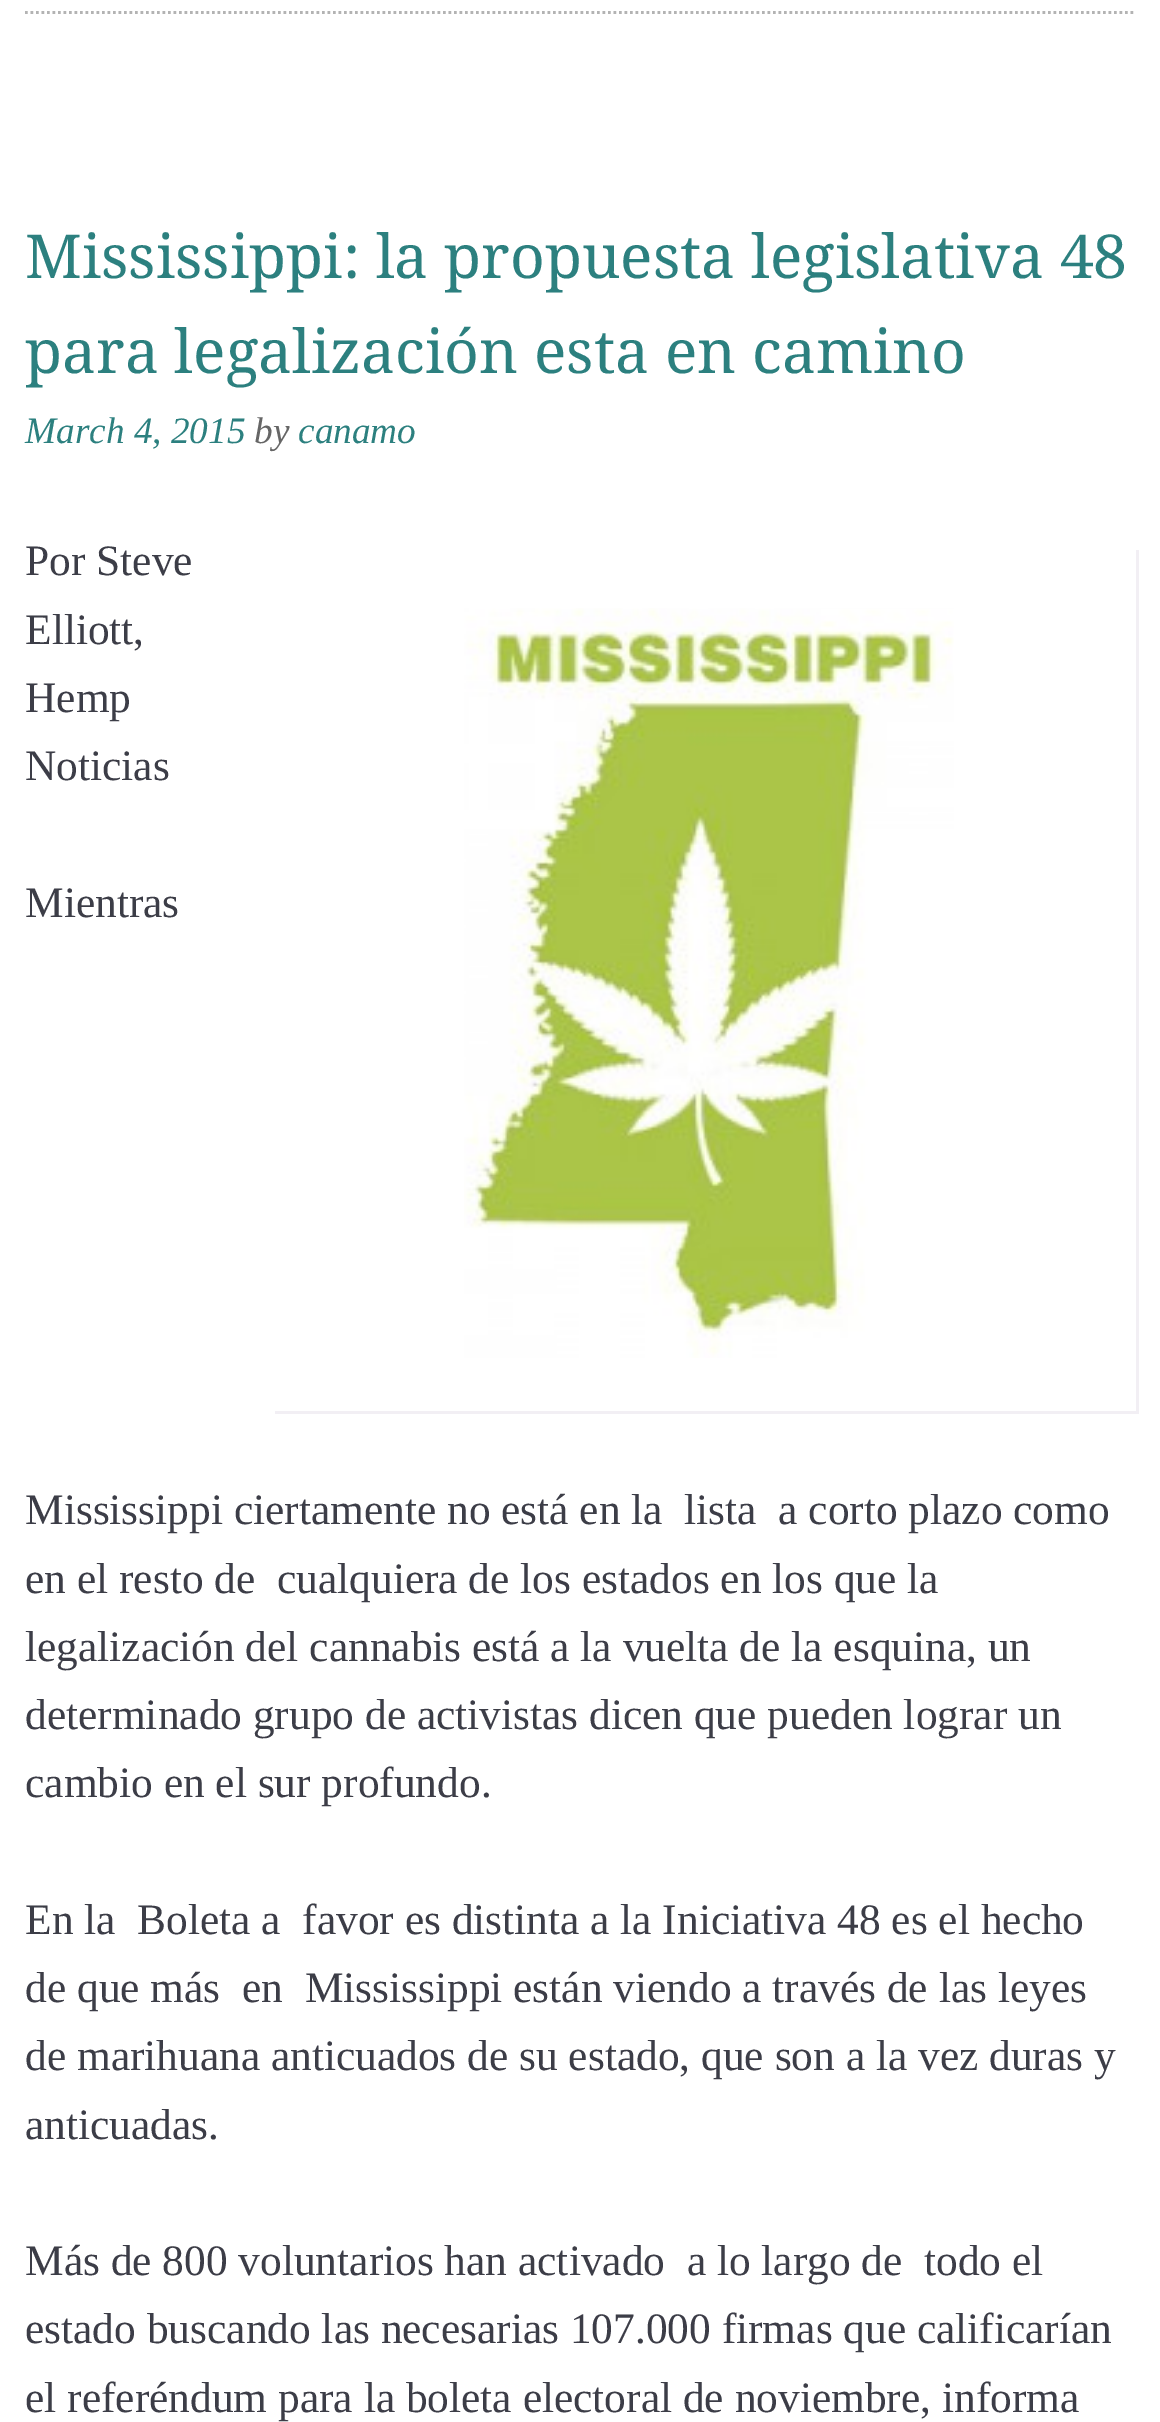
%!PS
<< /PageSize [1160 2422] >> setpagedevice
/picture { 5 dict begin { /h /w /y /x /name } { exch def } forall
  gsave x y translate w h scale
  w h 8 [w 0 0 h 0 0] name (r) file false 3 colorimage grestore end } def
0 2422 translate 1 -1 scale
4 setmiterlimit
1 setgray
0 0 1160 2422 rectfill
0.702 setgray
2.8 setlinewidth
[2.75 2.75] 0 setdash
newpath 25 12.5 moveto 1136 12.5 lineto stroke
/DroidSerif-Regular [60.5 0 0 -60.5 0 0] selectfont
0.173 0.502 0.498 setrgbcolor
25 278 moveto (Mississippi: la propuesta legislativa 48) show
25 373 moveto (para legalización esta en camino) show
/LiberationSerif-Italic [37.25 0 0 -37.25 0 0] selectfont
25 443 moveto (March 4, 2015) show
0.4 setgray
254 443 moveto (by) show
0.173 0.502 0.498 setrgbcolor
298 443 moveto (canamo) show
/LiberationSerif-Regular [43.4 0 0 -43.4 0 0] selectfont
0.235 0.239 0.278 setrgbcolor
25 575 moveto (Por Steve) show
0.949 0.937 0.957 setrgbcolor
newpath 275 1411 moveto 275 1414 lineto 1139 1414 lineto 1139 550 lineto 1136 550 lineto 1136 1411 lineto closepath fill
(img1.rgb) 464 608 490 750 picture
0.235 0.239 0.278 setrgbcolor
25 644 moveto (Elliott,) show
25 712 moveto (Hemp) show
25 780 moveto (Noticias) show
25 917 moveto (Mientras) show
25 1524 moveto (Mississippi ciertamente no está en la  lista  a corto plazo como) show
25 1593 moveto (en el resto de  cualquiera de los estados en los que la) show
25 1661 moveto (legalización del cannabis está a la vuelta de la esquina, un) show
25 1729 moveto (determinado grupo de activistas dicen que pueden lograr un) show
25 1797 moveto (cambio en el sur profundo.) show
25 1934 moveto (En la  Boleta a  favor es distinta a la Iniciativa 48 es el hecho) show
25 2002 moveto (de que más  en  Mississippi están viendo a través de las leyes) show
25 2070 moveto (de marihuana anticuados de su estado, que son a la vez duras y) show
25 2139 moveto (anticuadas.) show
25 2275 moveto (Más de 800 voluntarios han activado  a lo largo de  todo el) show
25 2343 moveto (estado buscando las necesarias 107.000 firmas que calificarían) show
25 2412 moveto (el referéndum para la boleta electoral de noviembre, informa) show
showpage
